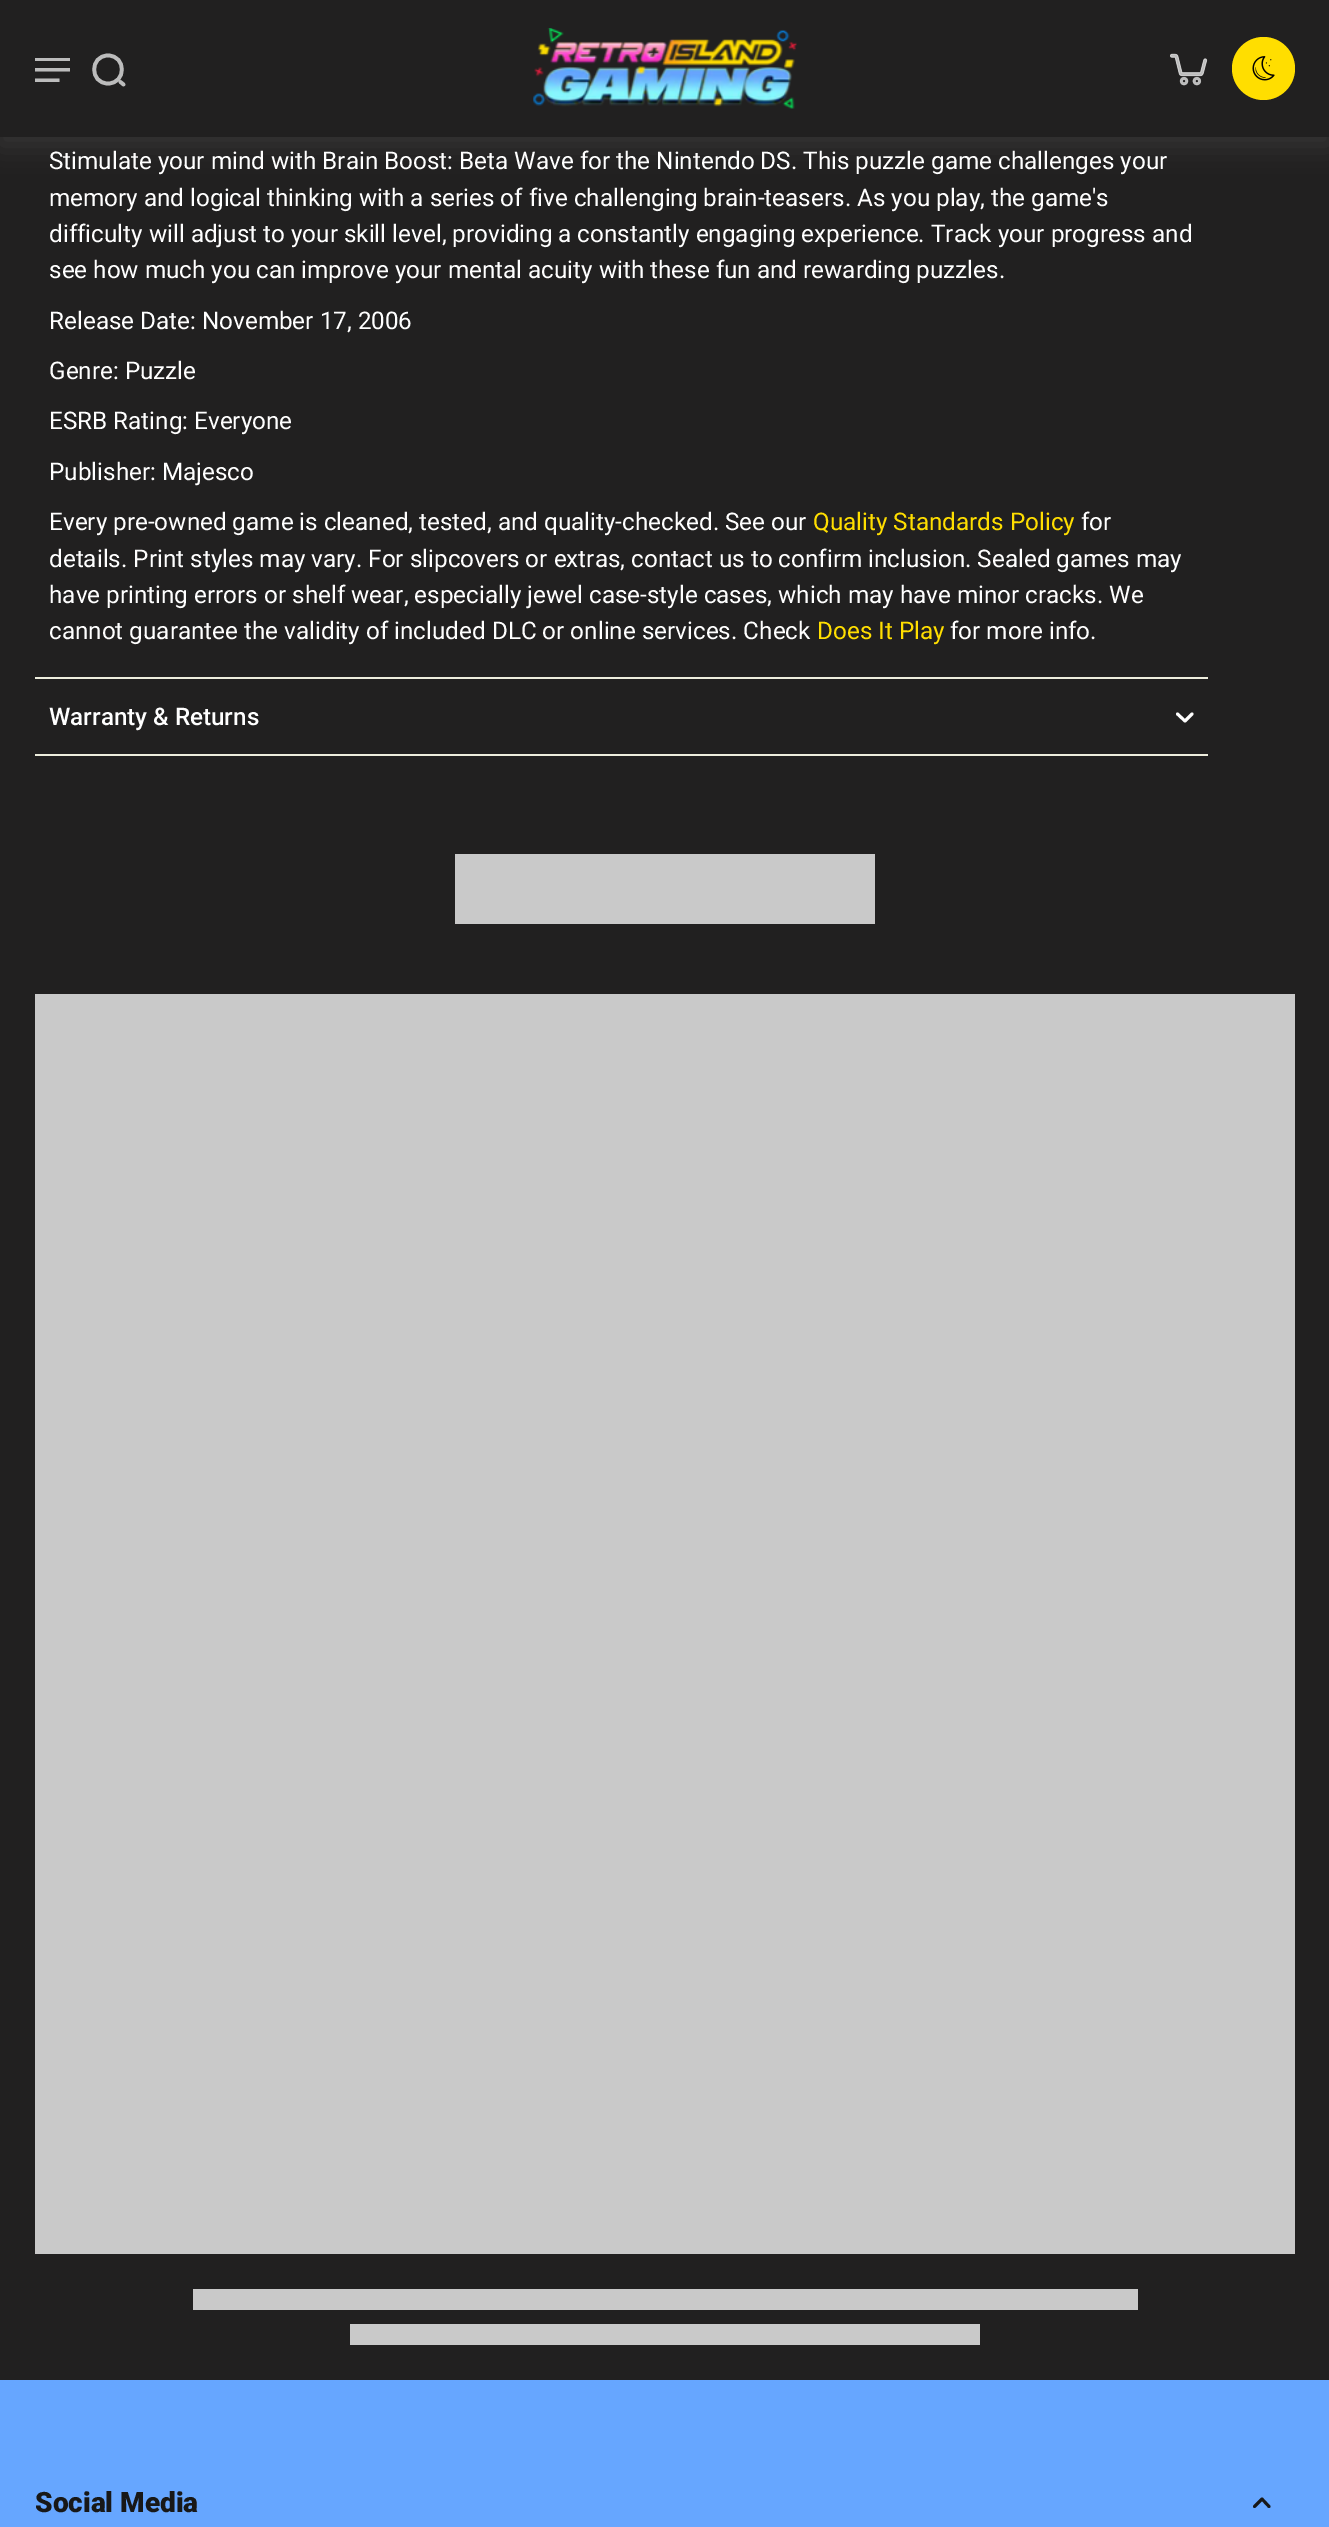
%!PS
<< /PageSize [1329 2527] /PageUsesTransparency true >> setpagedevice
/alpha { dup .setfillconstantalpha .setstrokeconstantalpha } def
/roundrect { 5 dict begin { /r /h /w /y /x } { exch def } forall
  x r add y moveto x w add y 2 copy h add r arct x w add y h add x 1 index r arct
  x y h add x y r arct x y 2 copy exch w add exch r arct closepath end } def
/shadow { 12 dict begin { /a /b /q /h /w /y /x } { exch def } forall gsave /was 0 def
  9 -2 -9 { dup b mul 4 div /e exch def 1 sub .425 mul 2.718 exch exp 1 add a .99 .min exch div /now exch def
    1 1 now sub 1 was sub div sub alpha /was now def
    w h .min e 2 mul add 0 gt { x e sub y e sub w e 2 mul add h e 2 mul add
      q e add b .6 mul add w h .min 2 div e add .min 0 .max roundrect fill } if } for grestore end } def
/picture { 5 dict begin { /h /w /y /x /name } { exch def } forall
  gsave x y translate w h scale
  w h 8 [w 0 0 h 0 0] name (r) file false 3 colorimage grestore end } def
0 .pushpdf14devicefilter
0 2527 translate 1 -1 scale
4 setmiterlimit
0.129 0.125 0.125 setrgbcolor
0 0 1329 2527 rectfill
1 setgray
0 9 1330 136 0 13 0.1 shadow
0.129 0.125 0.125 setrgbcolor
0 0 1329 137 rectfill
(img1.rgb) 533 28 264 81 picture
gsave
35 58 35 24 rectclip
0.737 setgray
newpath 35 57.5 moveto 35 61 lineto 70 61 lineto 70 57.5 lineto closepath 35 71.5 moveto 70 71.5 lineto 70 68 lineto 35 68 lineto closepath 35 82 moveto 59.5 82 lineto 59.5 78.5 lineto 35 78.5 lineto closepath eofill
grestore
0.737 setgray
3.7 setlinewidth
1 setlinecap
1 setlinejoin
newpath 108 83.5 moveto 126.5 83.5 126.5 55.5 108 55.5 curveto 89.5 55.5 89.5 83.5 108 83.5 curveto closepath 123.5 84.5 moveto 120.5 82 lineto stroke
(img2.rgb) 1170 53 38 33 picture
1 0.871 0 setrgbcolor
newpath 1263.5 68.5 31.5 0 360 arc closepath fill
(img3.rgb) 1252 56 23 25 picture
0.929 0.929 0.867 setrgbcolor
35 677 1173 2 rectfill
/Roboto-Regular [24.25 0 0 -24.25 0 0] selectfont
1 setgray
49 169 moveto (Stimulate your mind with Brain Boost: Beta Wave for the Nintendo DS. This puzzle game challenges your) show
49 206 moveto (memory and logical thinking with a series of five challenging brain-teasers. As you play, the game's) show
49 242 moveto (difficulty will adjust to your skill level, providing a constantly engaging experience. Track your progress and) show
49 278 moveto (see how much you can improve your mental acuity with these fun and rewarding puzzles.) show
49 329 moveto (Release Date: November 17, 2006) show
49 379 moveto (Genre: Puzzle) show
49 429 moveto (ESRB Rating: Everyone) show
49 480 moveto (Publisher: Majesco) show
49 530 moveto (Every pre-owned game is cleaned, tested, and quality-checked. See our) show
1 0.871 0 setrgbcolor
813 530 moveto (Quality Standards Policy) show
1 setgray
1081 530 moveto (for) show
49 567 moveto (details. Print styles may vary. For slipcovers or extras, contact us to confirm inclusion. Sealed games may) show
49 603 moveto (have printing errors or shelf wear, especially jewel case-style cases, which may have minor cracks. We) show
49 639 moveto (cannot guarantee the validity of included DLC or online services. Check) show
1 0.871 0 setrgbcolor
817 639 moveto (Does It Play) show
1 setgray
950 639 moveto (for more info.) show
0.929 0.929 0.867 setrgbcolor
35 754 1173 2 rectfill
/Roboto-Medium [24.25 0 0 -24.25 0 0] selectfont
1 setgray
49 725 moveto (Warranty & Returns) show
2.9 setlinewidth
newpath 1177.5 714 moveto 1185 721 lineto 1192 714 lineto stroke
0.788 setgray
455 854 420 70 rectfill
35 994 1260 1260 rectfill
193 2289 945 21 rectfill
350 2324 630 21 rectfill
0.4 0.651 1 setrgbcolor
0 2380 1329 147 rectfill
/Roboto-Black [28 0 0 -28 0 0] selectfont
0.094 setgray
35 2512 moveto (Social Media) show
newpath 1269 2506.5 moveto 1262 2499 lineto 1254.5 2506.5 lineto stroke
.poppdf14devicefilter showpage
